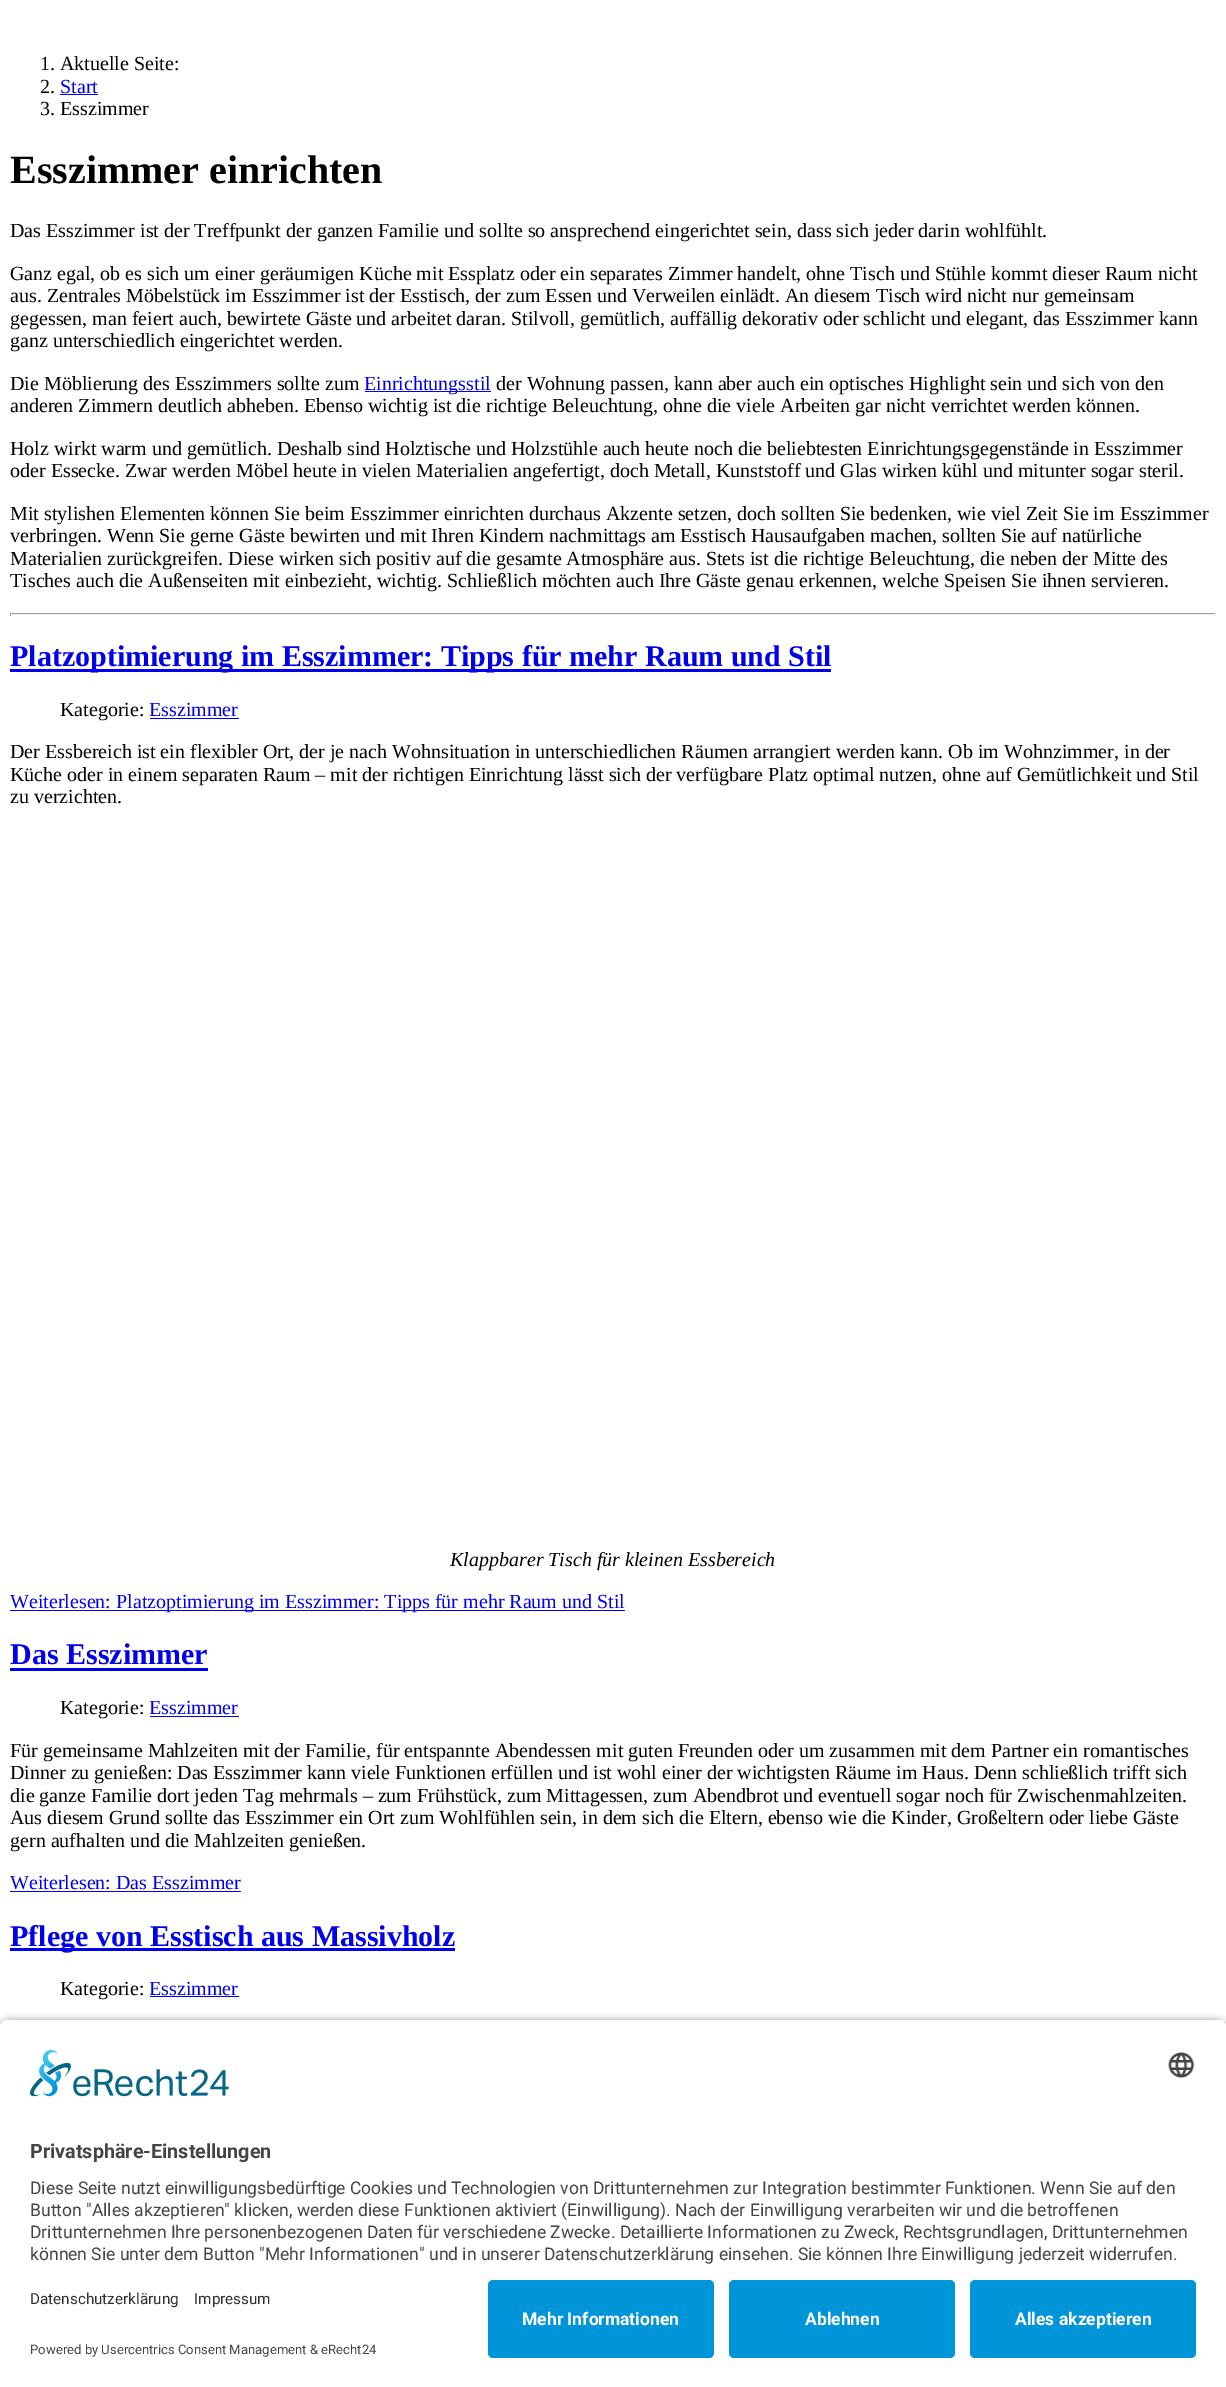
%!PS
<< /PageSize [1226 2387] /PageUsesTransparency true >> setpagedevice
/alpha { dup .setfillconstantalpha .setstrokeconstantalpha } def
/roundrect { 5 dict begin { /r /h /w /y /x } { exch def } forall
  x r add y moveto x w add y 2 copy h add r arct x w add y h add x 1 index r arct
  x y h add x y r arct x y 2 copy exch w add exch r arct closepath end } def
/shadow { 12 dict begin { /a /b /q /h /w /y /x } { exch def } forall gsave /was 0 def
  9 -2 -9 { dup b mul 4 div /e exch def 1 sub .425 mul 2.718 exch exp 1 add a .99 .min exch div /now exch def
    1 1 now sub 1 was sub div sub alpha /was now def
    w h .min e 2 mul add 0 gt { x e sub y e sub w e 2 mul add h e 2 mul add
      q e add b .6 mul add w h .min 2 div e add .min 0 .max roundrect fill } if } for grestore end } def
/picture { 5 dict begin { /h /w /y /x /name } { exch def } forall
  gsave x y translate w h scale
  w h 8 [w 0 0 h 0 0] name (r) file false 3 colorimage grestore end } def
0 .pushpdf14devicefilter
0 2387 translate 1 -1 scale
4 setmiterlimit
1 setgray
0 0 1226 2387 rectfill
/LiberationSerif-Regular [20 0 0 -20 0 0] selectfont
0 setgray
40 70 moveto (1. Aktuelle Seite:) show
40 93 moveto (2.) show
0 0 0.933 setrgbcolor
60 93 moveto (Start) show
60 94 38 1 rectfill
0 setgray
40 115 moveto (3. Esszimmer) show
/LiberationSerif-Bold [40 0 0 -40 0 0] selectfont
10 183 moveto (Esszimmer einrichten) show
/LiberationSerif-Regular [20 0 0 -20 0 0] selectfont
10 237 moveto (Das Esszimmer ist der Treffpunkt der ganzen Familie und sollte so ansprechend eingerichtet sein, dass sich jeder darin wohlfühlt.) show
10 280 moveto (Ganz egal, ob es sich um einer geräumigen Küche mit Essplatz oder ein separates Zimmer handelt, ohne Tisch und Stühle kommt dieser Raum nicht) show
10 302 moveto (aus. Zentrales Möbelstück im Esszimmer ist der Esstisch, der zum Essen und Verweilen einlädt. An diesem Tisch wird nicht nur gemeinsam) show
10 325 moveto (gegessen, man feiert auch, bewirtete Gäste und arbeitet daran. Stilvoll, gemütlich, auffällig dekorativ oder schlicht und elegant, das Esszimmer kann) show
10 347 moveto (ganz unterschiedlich eingerichtet werden.) show
10 390 moveto (Die Möblierung des Esszimmers sollte zum) show
0 0 0.933 setrgbcolor
365 391 126 1 rectfill
364 390 moveto (Einrichtungsstil) show
0 setgray
496 390 moveto (der Wohnung passen, kann aber auch ein optisches Highlight sein und sich von den) show
10 412 moveto (anderen Zimmern deutlich abheben. Ebenso wichtig ist die richtige Beleuchtung, ohne die viele Arbeiten gar nicht verrichtet werden können.) show
10 455 moveto (Holz wirkt warm und gemütlich. Deshalb sind Holztische und Holzstühle auch heute noch die beliebtesten Einrichtungsgegenstände in Esszimmer) show
10 477 moveto (oder Essecke. Zwar werden Möbel heute in vielen Materialien angefertigt, doch Metall, Kunststoff und Glas wirken kühl und mitunter sogar steril.) show
10 520 moveto (Mit stylishen Elementen können Sie beim Esszimmer einrichten durchaus Akzente setzen, doch sollten Sie bedenken, wie viel Zeit Sie im Esszimmer) show
10 542 moveto (verbringen. Wenn Sie gerne Gäste bewirten und mit Ihren Kindern nachmittags am Esstisch Hausaufgaben machen, sollten Sie auf natürliche) show
10 565 moveto (Materialien zurückgreifen. Diese wirken sich positiv auf die gesamte Atmosphäre aus. Stets ist die richtige Beleuchtung, die neben der Mitte des) show
10 587 moveto (Tisches auch die Außenseiten mit einbezieht, wichtig. Schließlich möchten auch Ihre Gäste genau erkennen, welche Speisen Sie ihnen servieren.) show
0.624 setgray
10 613 1206 1 rectfill
0.933 setgray
1215 613 1 3 rectfill
10 614 1206 1 rectfill
0.624 setgray
10 613 1 3 rectfill
0 0 0.933 setrgbcolor
10 669 821 3 rectfill
/LiberationSerif-Bold [30 0 0 -30 0 0] selectfont
10 666 moveto (Platzoptimierung im Esszimmer: Tipps für mehr Raum und Stil) show
/LiberationSerif-Regular [20 0 0 -20 0 0] selectfont
0 setgray
60 716 moveto (Kategorie:) show
0 0 0.933 setrgbcolor
149 716 moveto (Esszimmer) show
150 718 89 1 rectfill
0 setgray
10 758 moveto (Der Essbereich ist ein flexibler Ort, der je nach Wohnsituation in unterschiedlichen Räumen arrangiert werden kann. Ob im Wohnzimmer, in der) show
10 781 moveto (Küche oder in einem separaten Raum – mit der richtigen Einrichtung lässt sich der verfügbare Platz optimal nutzen, ohne auf Gemütlichkeit und Stil) show
10 803 moveto (zu verzichten.) show
/LiberationSerif-Italic [20 0 0 -20 0 0] selectfont
450 1566 moveto (Klappbarer Tisch für kleinen Essbereich) show
0 0 0.933 setrgbcolor
10 1610 615 1 rectfill
/LiberationSerif-Regular [20 0 0 -20 0 0] selectfont
10 1608 moveto (Weiterlesen: Platzoptimierung im Esszimmer: Tipps für mehr Raum und Stil) show
/LiberationSerif-Bold [30 0 0 -30 0 0] selectfont
10 1664 moveto (Das Esszimmer) show
10 1668 198 3 rectfill
/LiberationSerif-Regular [20 0 0 -20 0 0] selectfont
0 setgray
60 1714 moveto (Kategorie:) show
0 0 0.933 setrgbcolor
149 1714 moveto (Esszimmer) show
150 1716 89 1 rectfill
0 setgray
10 1757 moveto (Für gemeinsame Mahlzeiten mit der Familie, für entspannte Abendessen mit guten Freunden oder um zusammen mit dem Partner ein romantisches) show
10 1779 moveto (Dinner zu genießen: Das Esszimmer kann viele Funktionen erfüllen und ist wohl einer der wichtigsten Räume im Haus. Denn schließlich trifft sich) show
10 1802 moveto (die ganze Familie dort jeden Tag mehrmals – zum Frühstück, zum Mittagessen, zum Abendbrot und eventuell sogar noch für Zwischenmahlzeiten.) show
10 1824 moveto (Aus diesem Grund sollte das Esszimmer ein Ort zum Wohlfühlen sein, in dem sich die Eltern, ebenso wie die Kinder, Großeltern oder liebe Gäste) show
10 1847 moveto (gern aufhalten und die Mahlzeiten genießen.) show
0 0 0.933 setrgbcolor
10 1889 moveto (Weiterlesen: Das Esszimmer) show
10 1891 231 1 rectfill
10 1948 445 3 rectfill
/LiberationSerif-Bold [30 0 0 -30 0 0] selectfont
10 1946 moveto (Pflege von Esstisch aus Massivholz) show
/LiberationSerif-Regular [20 0 0 -20 0 0] selectfont
0 setgray
60 1995 moveto (Kategorie:) show
0 0 0.933 setrgbcolor
149 1995 moveto (Esszimmer) show
150 1996 89 1 rectfill
0 setgray
0 2023 1226 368 10 4.5 0.8 shadow
gsave
newpath 10 2019 moveto 1216 2019 lineto 1221.5 2019 1226 2023.5 1226 2029 curveto 1226 2270 lineto 0 2270 lineto 0 2029 lineto 0 2023.5 4.5 2019 10 2019 curveto closepath clip newpath
1 setgray
0 2020 1226 250 rectfill
grestore
(img1.rgb) 30 2050 199 47 picture
(img2.rgb) 1168 2052 27 26 picture
/Roboto-Bold [19.75 0 0 -19.75 0 0] selectfont
0.267 setgray
30 2158 moveto (Privatsphäre-Einstellungen) show
/Roboto-Regular [17.5 0 0 -17.5 0 0] selectfont
30 2194 moveto (Diese Seite nutzt einwilligungsbedürftige Cookies und Technologien von Drittunternehmen zur Integration bestimmter Funktionen. Wenn Sie auf den) show
30 2216 moveto (Button "Alles akzeptieren" klicken, werden diese Funktionen aktiviert \(Einwilligung\). Nach der Einwilligung verarbeiten wir und die betroffenen) show
30 2238 moveto (Drittunternehmen Ihre personenbezogenen Daten für verschiedene Zwecke. Detaillierte Informationen zu Zweck, Rechtsgrundlagen, Drittunternehmen) show
30 2260 moveto (können Sie unter dem Button "Mehr Informationen" und in unserer Datenschutzerklärung einsehen. Sie können Ihre Einwilligung jederzeit widerrufen.) show
1 setgray
0 2270 1226 117 rectfill
/Roboto-Regular [15.25 0 0 -15.25 0 0] selectfont
0.188 setgray
30 2304 moveto (Datenschutzerklärung) show
194 2304 moveto (Impressum) show
/Roboto-Regular [13.1 0 0 -13.1 0 0] selectfont
0.267 setgray
30 2354 moveto (Powered by Usercentrics Consent Management & eRecht24) show
0 0.58 0.847 setrgbcolor
488 2280 226 78 5 roundrect fill
/Roboto-Bold [17.5 0 0 -17.5 0 0] selectfont
1 setgray
522 2325 moveto (Mehr Informationen) show
0 0.58 0.847 setrgbcolor
729 2280 226 78 5 roundrect fill
1 setgray
805 2325 moveto (Ablehnen) show
0 0.58 0.847 setrgbcolor
970 2280 226 78 5 roundrect fill
1 setgray
1015 2325 moveto (Alles akzeptieren) show
.poppdf14devicefilter showpage
